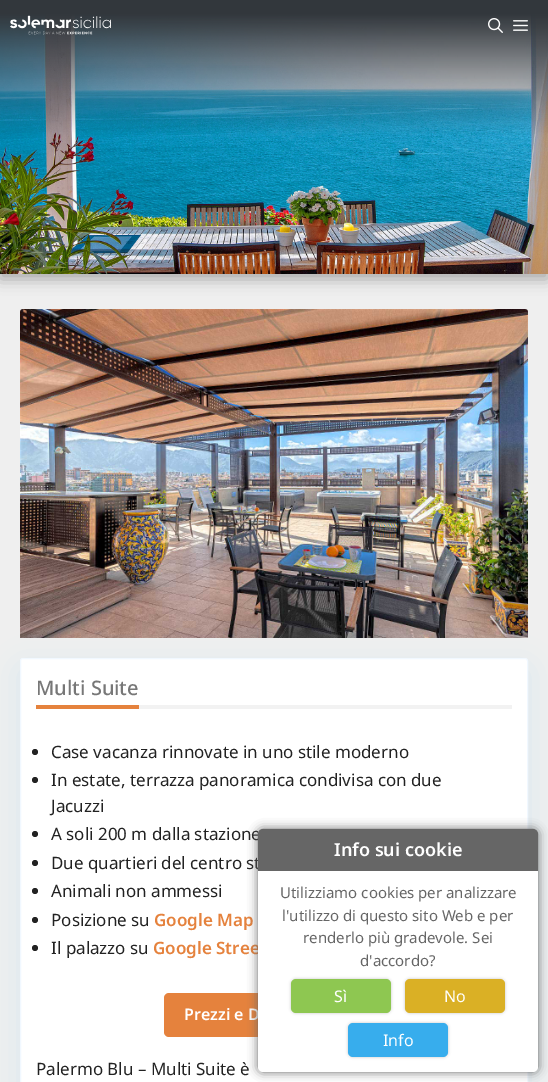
%!PS
<< /PageSize [548 1082] /PageUsesTransparency true >> setpagedevice
/alpha { dup .setfillconstantalpha .setstrokeconstantalpha } def
/roundrect { 5 dict begin { /r /h /w /y /x } { exch def } forall
  x r add y moveto x w add y 2 copy h add r arct x w add y h add x 1 index r arct
  x y h add x y r arct x y 2 copy exch w add exch r arct closepath end } def
/shadow { 12 dict begin { /a /b /q /h /w /y /x } { exch def } forall gsave /was 0 def
  9 -2 -9 { dup b mul 4 div /e exch def 1 sub .425 mul 2.718 exch exp 1 add a .99 .min exch div /now exch def
    1 1 now sub 1 was sub div sub alpha /was now def
    w h .min e 2 mul add 0 gt { x e sub y e sub w e 2 mul add h e 2 mul add
      q e add b .6 mul add w h .min 2 div e add .min 0 .max roundrect fill } if } for grestore end } def
/picture { 5 dict begin { /h /w /y /x /name } { exch def } forall
  gsave x y translate w h scale
  w h 8 [w 0 0 h 0 0] name (r) file false 3 colorimage grestore end } def
0 .pushpdf14devicefilter
0 1082 translate 1 -1 scale
4 setmiterlimit
0.937 setgray
0 0 548 1082 rectfill
0 setgray
0 5 548 274 0 7.5 0.3 shadow
(img1.rgb) 0 0 548 274 picture
(img2.rgb) 10 15 101 20 picture
(img3.rgb) 488 18 15 15 picture
(img4.rgb) 513 20 15 11 picture
0.027 0.596 1 setrgbcolor
20 668 508 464 3 15.5 0.09 shadow
(img5.rgb) 20 309 508 329 picture
1 setgray
20.5 658.5 507 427 2.5 roundrect gsave fill grestore
0.945 0.973 1 setrgbcolor
stroke
0.949 setgray
139 705 373 4 rectfill
0.898 0.51 0.239 setrgbcolor
36 705 103 4 rectfill
/NotoSans-Medium [20 0 0 -20 0 0] selectfont
0.467 setgray
36 695 moveto (Multi Suite) show
0.133 setgray
newpath 35 752 3 0 360 arc closepath fill
/NotoSans-Regular [17 0 0 -17 0 0] selectfont
51 758 moveto (Case vacanza rinnovate in uno stile moderno) show
newpath 35 780 3 0 360 arc closepath fill
51 786 moveto (In estate, terrazza panoramica condivisa con due) show
51 812 moveto (Jacuzzi) show
newpath 35 834 3 0 360 arc closepath fill
51 840 moveto (A soli 200 m dalla stazione) show
newpath 35 863 3 0 360 arc closepath fill
51 869 moveto (Due quartieri del centro st) show
newpath 35 891 3 0 360 arc closepath fill
51 897 moveto (Animali non ammessi) show
newpath 35 920 3 0 360 arc closepath fill
51 926 moveto (Posizione su) show
/NotoSans-SemiBold [17 0 0 -17 0 0] selectfont
0.898 0.51 0.239 setrgbcolor
154 926 moveto (Google Map) show
0.133 setgray
newpath 35 948 3 0 360 arc closepath fill
/NotoSans-Regular [17 0 0 -17 0 0] selectfont
51 954 moveto (Il palazzo su) show
/NotoSans-SemiBold [17 0 0 -17 0 0] selectfont
0.898 0.51 0.239 setrgbcolor
153 954 moveto (Google Stree) show
164 993 220 44 5 roundrect fill
/NotoSans-SemiBold [16 0 0 -16 0 0] selectfont
1 setgray
184 1020 moveto (Prezzi e D) show
/NotoSans-Regular [17 0 0 -17 0 0] selectfont
0.133 setgray
36 1075 moveto (Palermo Blu – Multi Suite è) show
0.4 setgray
258 829 280 243 5 5 1 shadow
1 setgray
258 829 280 243 5 roundrect fill
0.4 setgray
newpath 263 829 moveto 533 829 lineto 536 829 538 831 538 834 curveto 538 871 lineto 258 871 lineto 258 834 lineto 258 831 260 829 263 829 curveto closepath fill
/NotoSans-SemiBold [18 0 0 -18 0 0] selectfont
1 setgray
334 856 moveto (Info sui cookie) show
/NotoSans-Regular [15 0 0 -15 0 0] selectfont
0.4 setgray
280 898 moveto (Utilizziamo cookies per analizzare) show
282 921 moveto (l'utilizzo di questo sito Web e per) show
303 943 moveto (renderlo più gradevole. Sei) show
360 966 moveto (d'accordo?) show
0.784 setgray
291 979 100 34 5 1.5 1 shadow
0.557 0.78 0.318 setrgbcolor
291 979 100 34 5 roundrect fill
/NotoSans-Regular [16 0 0 -16 0 0] selectfont
1 setgray
334 1002 moveto (Sì) show
0.784 setgray
405 979 100 34 5 1.5 1 shadow
0.855 0.69 0.145 setrgbcolor
405 979 100 34 5 roundrect fill
1 setgray
444 1002 moveto (No) show
0.784 setgray
348 1023 100 34 5 1.5 1 shadow
0.216 0.678 0.929 setrgbcolor
348 1023 100 34 5 roundrect fill
1 setgray
383 1046 moveto (Info) show
.poppdf14devicefilter showpage
